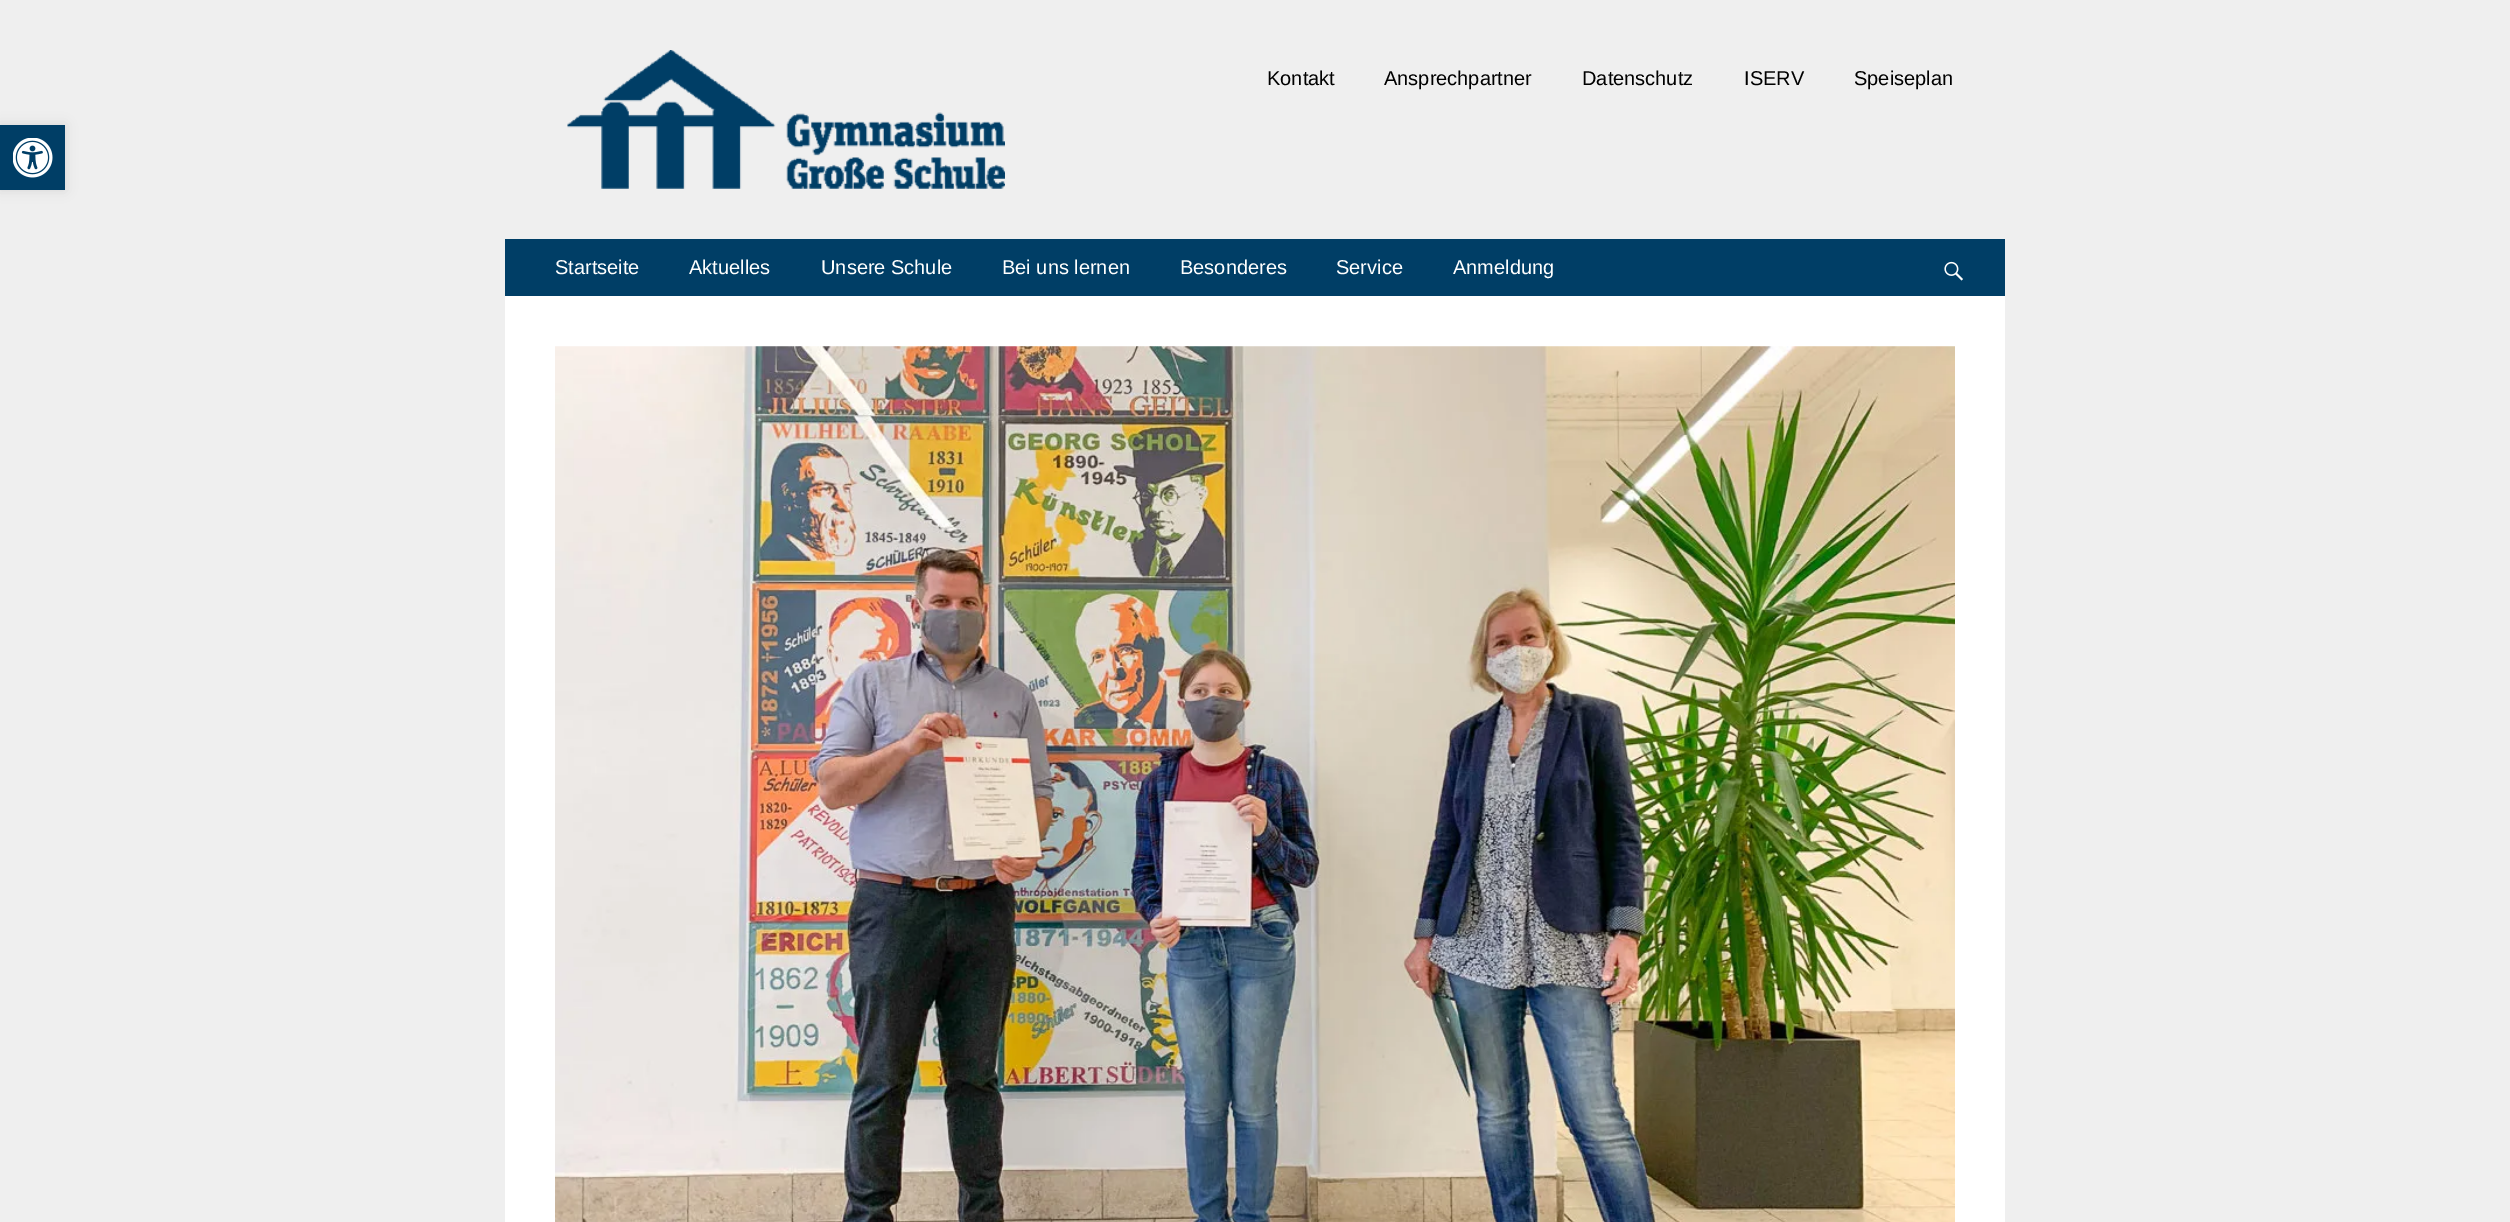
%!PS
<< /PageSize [2510 1222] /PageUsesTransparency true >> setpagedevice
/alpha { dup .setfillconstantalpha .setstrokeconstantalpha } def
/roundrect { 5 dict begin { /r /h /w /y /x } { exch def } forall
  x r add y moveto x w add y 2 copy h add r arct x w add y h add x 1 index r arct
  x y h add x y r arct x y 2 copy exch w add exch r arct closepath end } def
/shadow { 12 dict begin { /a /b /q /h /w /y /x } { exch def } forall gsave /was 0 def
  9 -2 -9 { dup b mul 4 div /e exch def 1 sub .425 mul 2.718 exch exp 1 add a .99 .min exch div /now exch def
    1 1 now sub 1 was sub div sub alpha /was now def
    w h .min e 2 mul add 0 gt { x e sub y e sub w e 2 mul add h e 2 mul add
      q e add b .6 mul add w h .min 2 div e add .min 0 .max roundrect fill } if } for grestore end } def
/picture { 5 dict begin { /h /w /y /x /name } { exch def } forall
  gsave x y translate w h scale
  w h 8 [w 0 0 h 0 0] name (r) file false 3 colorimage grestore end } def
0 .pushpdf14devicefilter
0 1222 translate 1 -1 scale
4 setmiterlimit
0.937 setgray
0 0 2510 1222 rectfill
0 setgray
0 125 65 65 0 6 0.1 shadow
0 0.243 0.4 setrgbcolor
0 125 65 65 rectfill
(img1.rgb) 13 138 40 40 picture
(img2.rgb) 567 50 438 139 picture
/LiberationSans-Regular [20 0 0 -20 0 0] selectfont
0 setgray
1267 85 moveto (Kontakt) show
1384 85 moveto (Ansprechpartner) show
1582 85 moveto (Datenschutz) show
1744 85 moveto (ISERV) show
1854 85 moveto (Speiseplan) show
0 0.243 0.4 setrgbcolor
505 239 1500 57 rectfill
1 setgray
555 274 moveto (Startseite) show
689 274 moveto (Aktuelles) show
821 274 moveto (Unsere Schule) show
1002 274 moveto (Bei uns lernen) show
1180 274 moveto (Besonderes) show
1336 274 moveto (Service) show
1453 274 moveto (Anmeldung) show
(img3.rgb) 1944 261 19 20 picture
505 296 1500 926 rectfill
(img4.rgb) 555 346 1400 876 picture
.poppdf14devicefilter showpage
